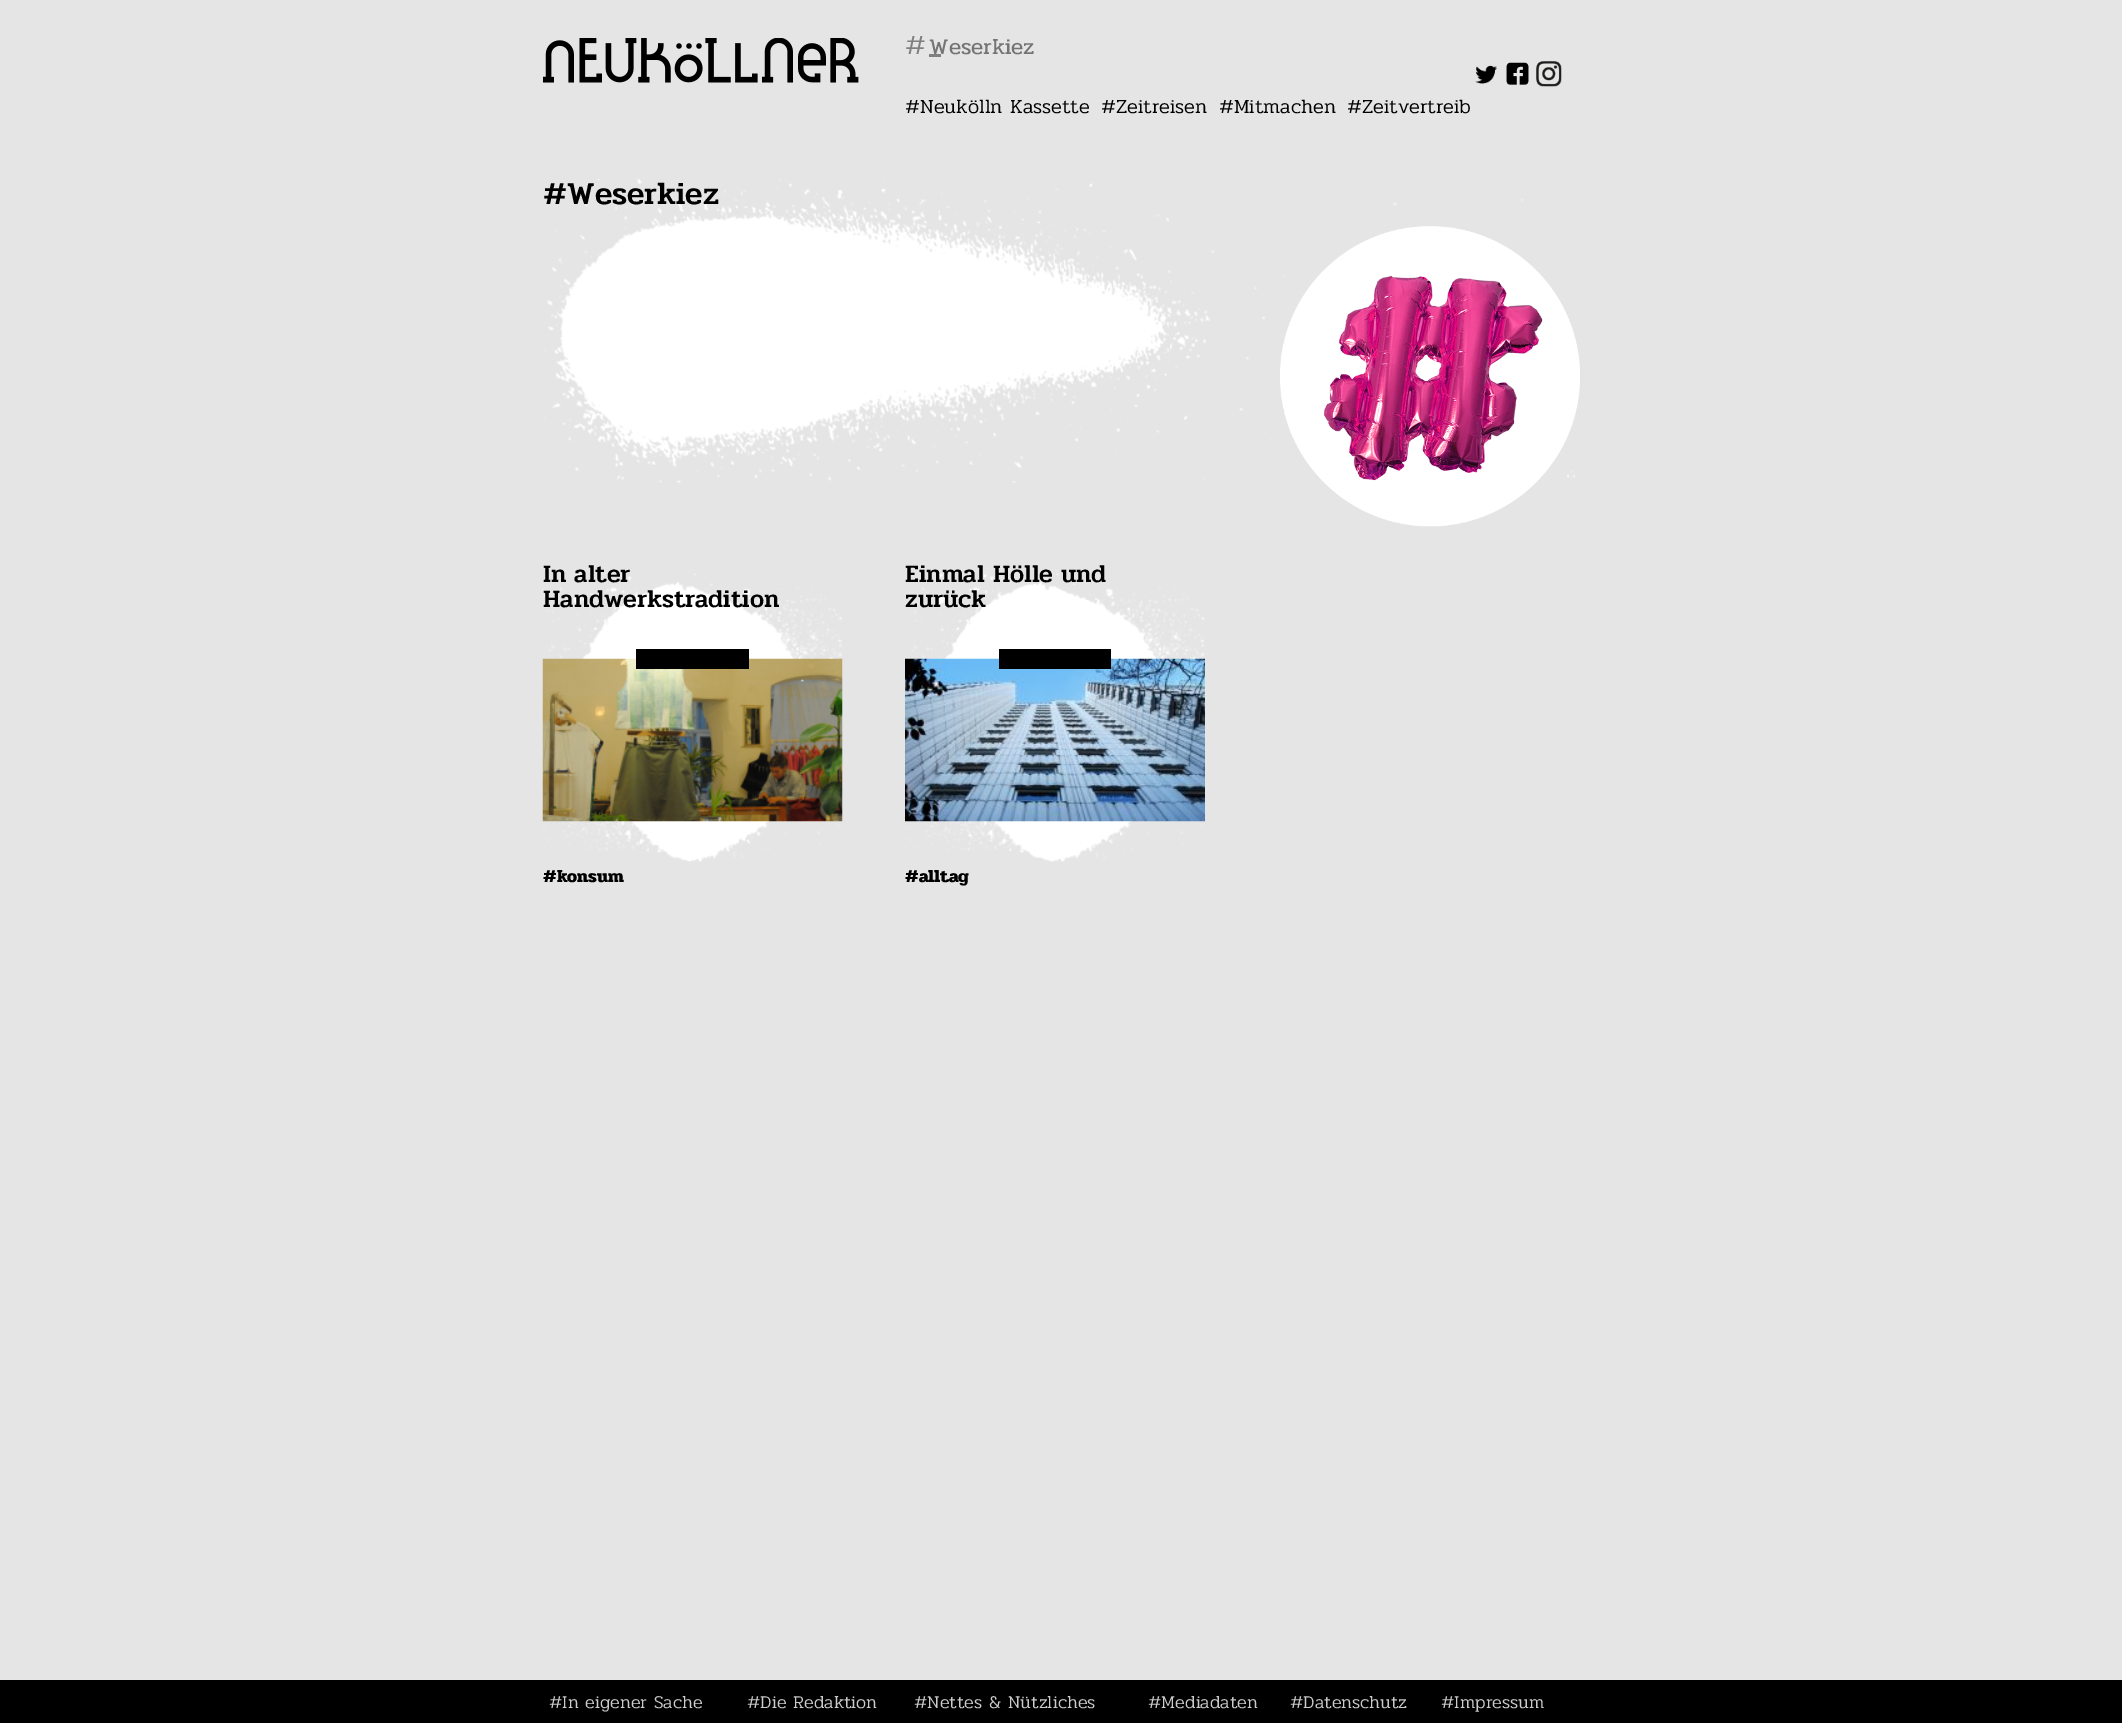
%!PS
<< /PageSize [2122 1723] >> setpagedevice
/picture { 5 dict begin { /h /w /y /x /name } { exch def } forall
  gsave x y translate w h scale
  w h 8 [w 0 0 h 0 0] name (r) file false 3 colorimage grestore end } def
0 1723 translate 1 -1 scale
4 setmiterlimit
0.898 setgray
0 0 2122 1723 rectfill
(img1.rgb) 543 38 316 45 picture
/Pridi-Light [28 0 0 -28 0 0] selectfont
0.502 setgray
905 54 moveto (#) show
929 54 12 3 rectfill
/Pridi-Regular [22.5 0 0 -22.5 0 0] selectfont
0.459 setgray
929 54 moveto (Weserkiez) show
(img2.rgb) 1475 65 22 19 picture
(img3.rgb) 1506 62 23 23 picture
(img4.rgb) 1536 61 26 26 picture
/Pridi-Light [20 0 0 -20 0 0] selectfont
0 setgray
905 113 moveto (#Neukölln Kassette) show
1101 113 moveto (#Zeitreisen) show
1219 113 moveto (#Mitmachen) show
1347 113 moveto (#Zeitvertreib) show
(img5.rgb) 544 179 1031 304 picture
/Pridi-Medium [32 0 0 -32 0 0] selectfont
543 204 moveto (#Weserkiez) show
(img6.rgb) 1280 226 300 301 picture
(img7.rgb) 542 573 301 289 picture
/Pridi-Medium [25.25 0 0 -25.25 0 0] selectfont
543 582 moveto (In alter) show
543 607 moveto (Handwerkstradition) show
(img8.rgb) 542 658 301 164 picture
636 649 113 20 rectfill
/Pridi-Bold [18 0 0 -18 0 0] selectfont
543 882 moveto (#konsum) show
(img9.rgb) 905 573 300 289 picture
/Pridi-Medium [25.25 0 0 -25.25 0 0] selectfont
905 582 moveto (Einmal Hölle und) show
905 607 moveto (zurück) show
(img10.rgb) 905 658 300 164 picture
999 649 112 20 rectfill
/Pridi-Bold [18 0 0 -18 0 0] selectfont
905 882 moveto (#alltag) show
0 1680 2122 43 rectfill
/Pridi-Light [18 0 0 -18 0 0] selectfont
0.8 setgray
549 1708 moveto (#In eigener Sache) show
747 1708 moveto (#Die Redaktion) show
914 1708 moveto (#Nettes & Nützliches) show
1148 1708 moveto (#Mediadaten) show
1290 1708 moveto (#Datenschutz) show
1441 1708 moveto (#Impressum) show
showpage
